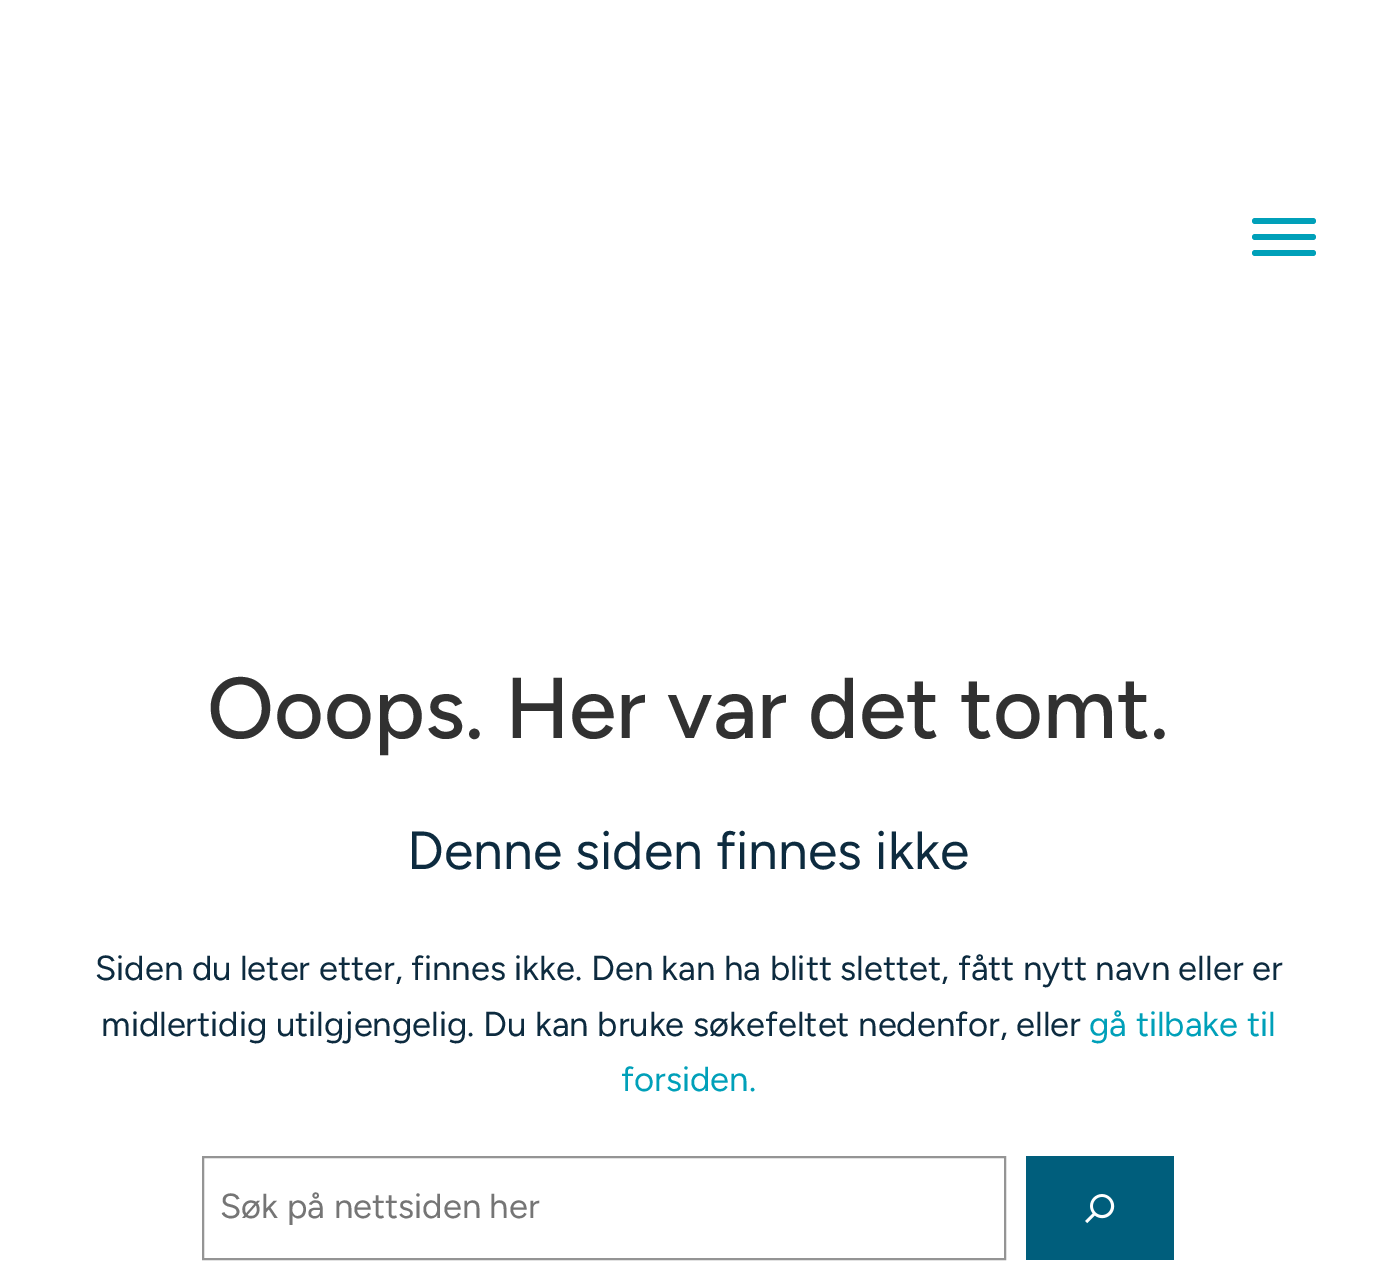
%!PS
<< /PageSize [1376 1286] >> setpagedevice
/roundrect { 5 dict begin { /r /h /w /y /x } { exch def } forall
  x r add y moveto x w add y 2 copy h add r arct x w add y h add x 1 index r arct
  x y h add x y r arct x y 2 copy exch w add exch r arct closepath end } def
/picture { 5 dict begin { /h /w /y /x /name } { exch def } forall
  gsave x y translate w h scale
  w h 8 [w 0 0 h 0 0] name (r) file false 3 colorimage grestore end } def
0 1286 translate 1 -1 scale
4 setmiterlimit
1 setgray
0 0 1376 1286 rectfill
0 0.627 0.725 setrgbcolor
1252 218 64 6 3 roundrect fill
1252 234 64 6 3 roundrect fill
1252 250 64 6 3 roundrect fill
/Figtree-Medium [86 0 0 -86 0 0] selectfont
0.192 setgray
207 738 moveto (Ooops. Her var det tomt.) show
/Figtree-Regular [53.5 0 0 -53.5 0 0] selectfont
0.051 0.169 0.247 setrgbcolor
407 869 moveto (Denne siden finnes ikke) show
/Figtree-Regular [34.7 0 0 -34.7 0 0] selectfont
95 980 moveto (Siden du leter etter, finnes ikke. Den kan ha blitt slettet, fått nytt navn eller er) show
101 1036 moveto (midlertidig utilgjengelig. Du kan bruke søkefeltet nedenfor, eller) show
0 0.627 0.725 setrgbcolor
1089 1036 moveto (gå tilbake til) show
621 1091 moveto (forsiden.) show
0.58 setgray
2 setlinewidth
203 1157 802 102 rectstroke
0.459 setgray
220 1218 moveto (Søk på nettsiden her) show
0 0.369 0.486 setrgbcolor
1026 1156 148 104 rectfill
(img1.rgb) 1085 1194 30 30 picture
showpage
